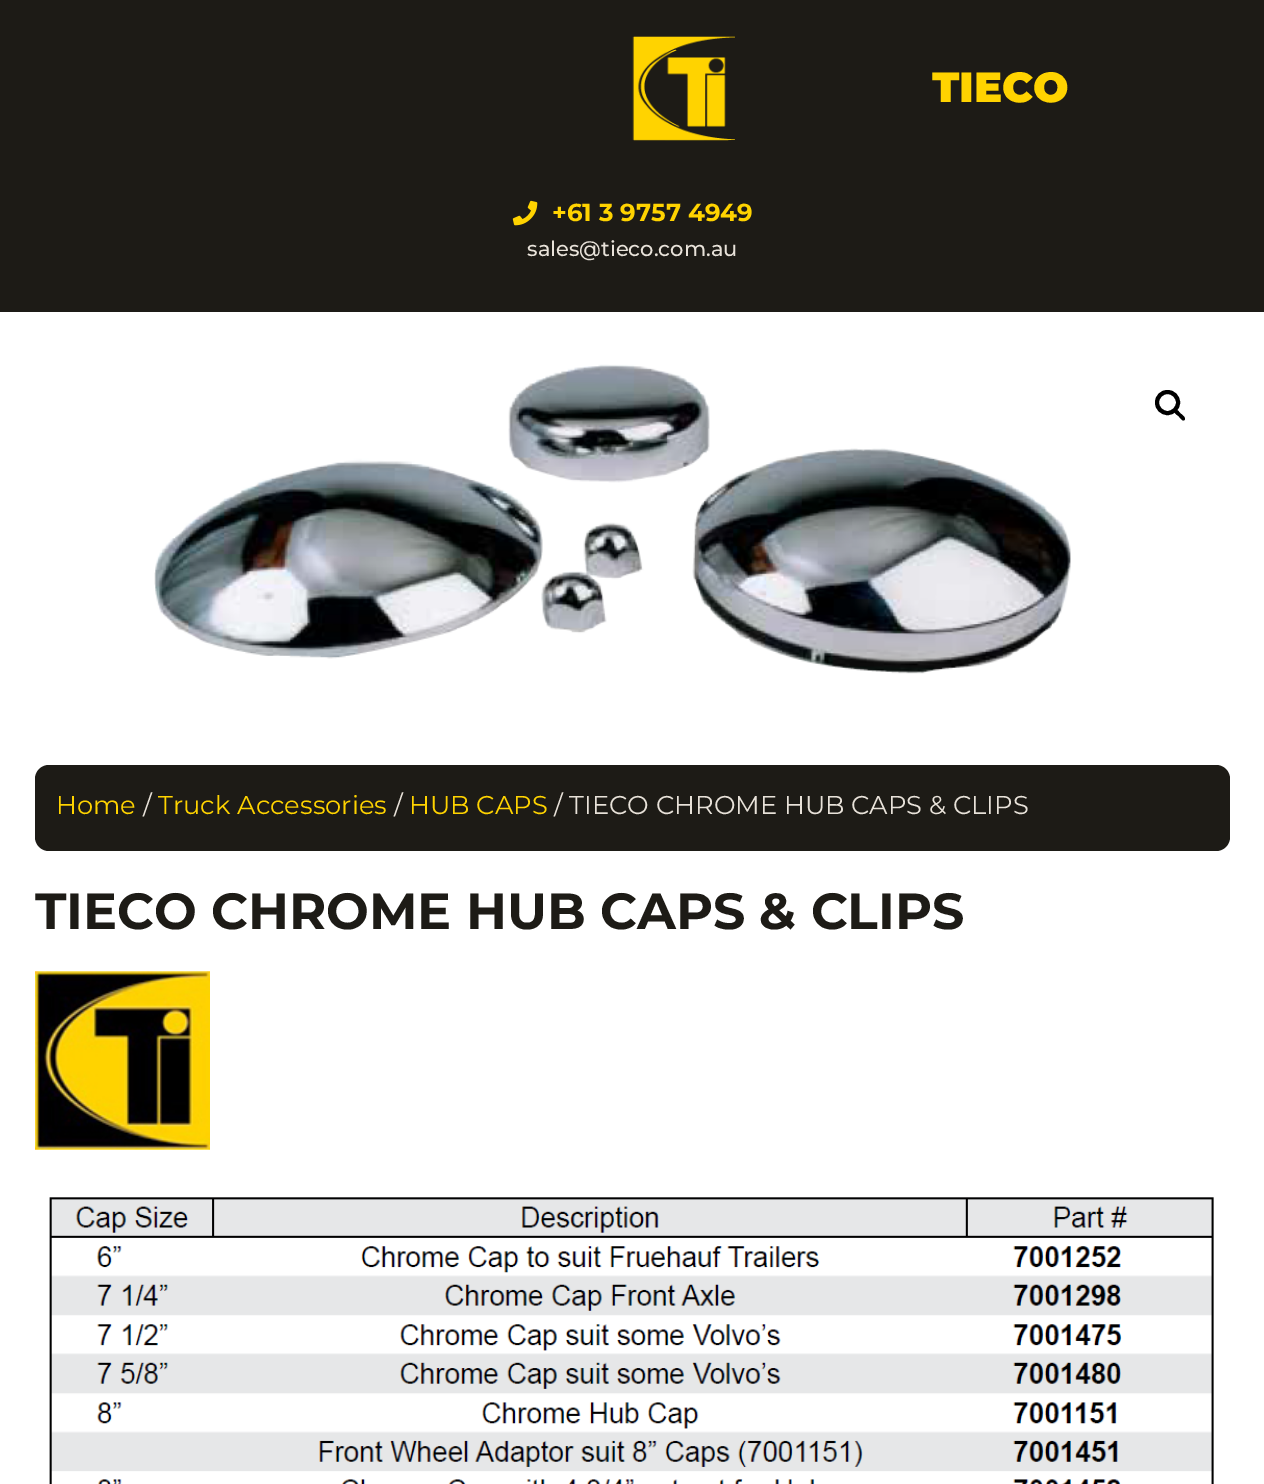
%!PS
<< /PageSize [1264 1484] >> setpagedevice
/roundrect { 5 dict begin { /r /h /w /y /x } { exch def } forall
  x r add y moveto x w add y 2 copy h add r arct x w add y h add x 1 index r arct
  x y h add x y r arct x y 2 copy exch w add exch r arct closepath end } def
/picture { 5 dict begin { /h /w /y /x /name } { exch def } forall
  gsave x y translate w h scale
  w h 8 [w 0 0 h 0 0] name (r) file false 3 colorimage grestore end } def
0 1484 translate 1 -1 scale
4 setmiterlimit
1 setgray
0 0 1264 1484 rectfill
0.114 0.106 0.086 setrgbcolor
0 0 1264 312 rectfill
(img1.rgb) 632 36 103 105 picture
/Montserrat-Black [42 0 0 -42 0 0] selectfont
1 0.827 0 setrgbcolor
932 102 moveto (TIECO) show
(img2.rgb) 512 200 26 26 picture
/Montserrat-Bold [24.5 0 0 -24.5 0 0] selectfont
552 221 moveto (+61 3 9757 4949) show
/Montserrat-Medium [21 0 0 -21 0 0] selectfont
0.91 0.886 0.851 setrgbcolor
527 256 moveto (sales@tieco.com.au) show
(img3.rgb) 154 364 917 310 picture
0 setgray
4 setlinewidth
newpath 1167.5 402.5 10.5 0 360 arc closepath stroke
newpath 1174.5 410 moveto 1176.5 408 1179.5 412.5 1180.5 413.5 curveto 1182 414.5 1186.5 418 1184.5 420 curveto 1182.5 422 1179.5 417 1178.5 416 curveto 1177 415 1172.5 412 1174.5 410 curveto closepath fill
0.114 0.106 0.086 setrgbcolor
35 765 1195 86 14 roundrect fill
/Montserrat-Regular [25.75 0 0 -25.75 0 0] selectfont
1 0.827 0 setrgbcolor
56 814 moveto (Home) show
0.91 0.886 0.851 setrgbcolor
143 814 moveto (/) show
1 0.827 0 setrgbcolor
158 814 moveto (Truck Accessories) show
0.91 0.886 0.851 setrgbcolor
394 814 moveto (/) show
1 0.827 0 setrgbcolor
409 814 moveto (HUB CAPS) show
0.91 0.886 0.851 setrgbcolor
554 814 moveto (/ TIECO CHROME HUB CAPS & CLIPS) show
/Montserrat-Bold [50.75 0 0 -50.75 0 0] selectfont
0.114 0.106 0.086 setrgbcolor
35 929 moveto (TIECO CHROME HUB CAPS & CLIPS) show
(img4.rgb) 35 971 175 179 picture
(img5.rgb) 49 1197 1165 287 picture
showpage
